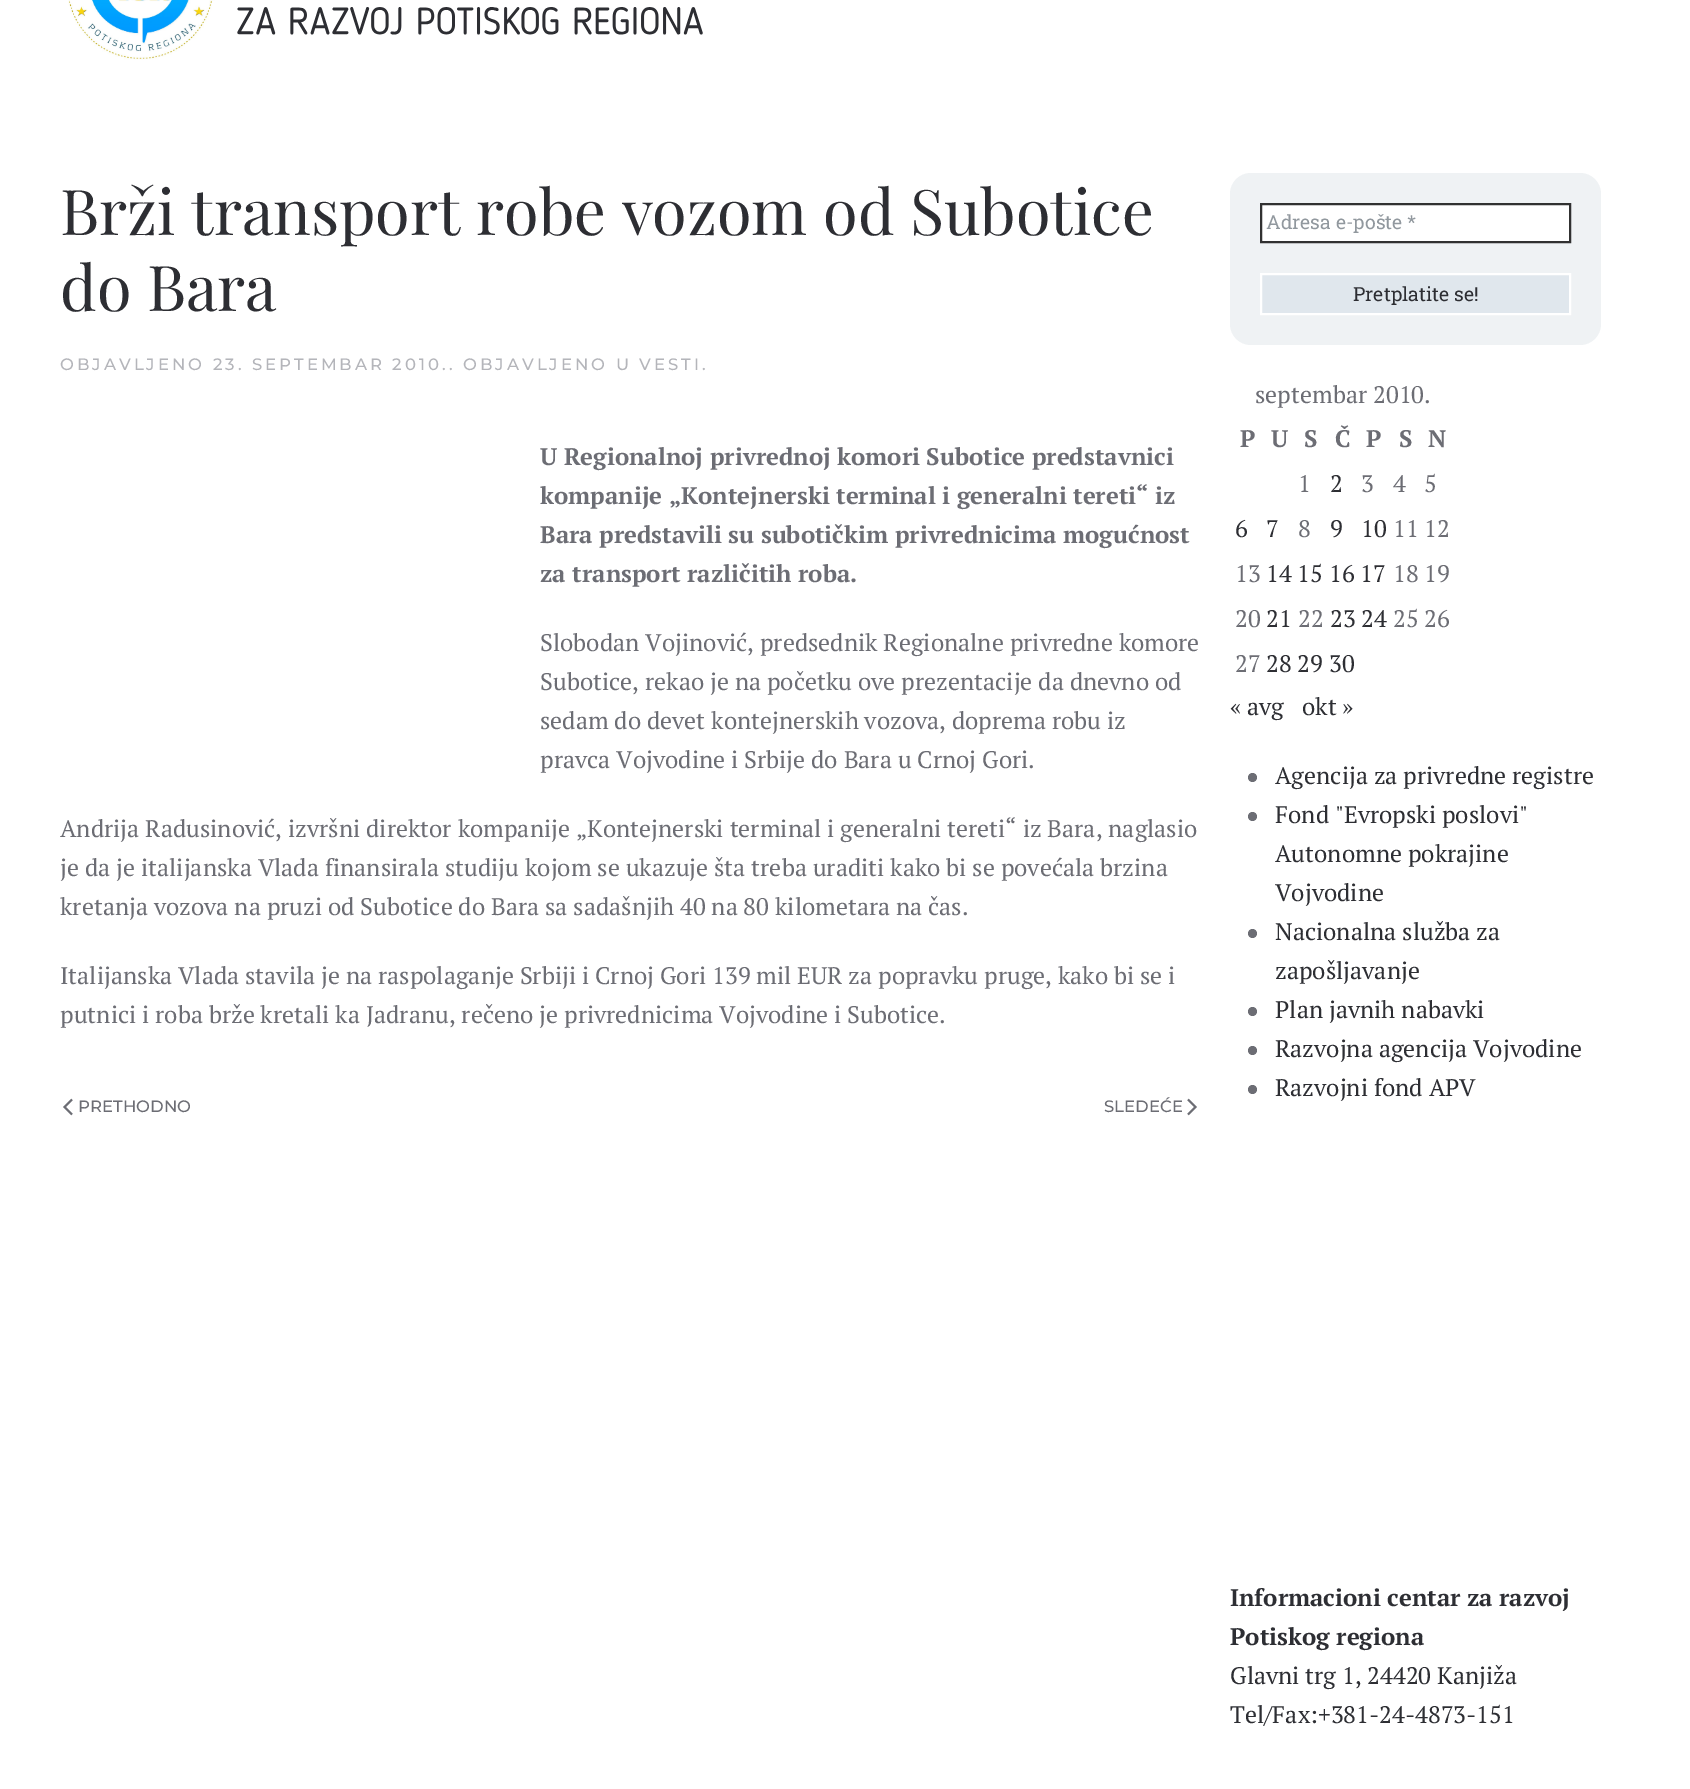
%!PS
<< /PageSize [1690 1789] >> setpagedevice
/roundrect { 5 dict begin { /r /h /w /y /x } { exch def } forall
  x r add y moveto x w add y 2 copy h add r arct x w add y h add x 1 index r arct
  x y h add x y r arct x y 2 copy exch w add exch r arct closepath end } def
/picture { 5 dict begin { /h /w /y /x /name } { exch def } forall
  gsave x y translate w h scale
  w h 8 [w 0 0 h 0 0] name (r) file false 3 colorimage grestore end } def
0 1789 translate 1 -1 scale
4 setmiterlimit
1 setgray
0 0 1690 1789 rectfill
(img1.rgb) 68 0 635 60 picture
/PlayfairDisplay-Regular [63 0 0 -63 0 0] selectfont
0.176 0.18 0.2 setrgbcolor
60 235 moveto (Brži transport robe vozom od Subotice) show
60 311 moveto (do Bara) show
/Montserrat-Thin [16.5 0 0 -16.5 0 0] selectfont
0.706 0.71 0.729 setrgbcolor
60 370 moveto 3 0 (OBJAVLJENO 23. SEPTEMBAR 2010.. OBJAVLJENO U VESTI.) ashow
/PTSerif-Bold [24 0 0 -24 0 0] selectfont
0.424 0.427 0.455 setrgbcolor
540 465 moveto (U Regionalnoj privrednoj komori Subotice predstavnici) show
540 504 moveto (kompanije „Kontejnerski terminal i generalni tereti“ iz) show
540 543 moveto (Bara predstavili su subotičkim privrednicima mogućnost) show
540 582 moveto (za transport različitih roba.) show
/PTSerif-Regular [24 0 0 -24 0 0] selectfont
540 651 moveto (Slobodan Vojinović, predsednik Regionalne privredne komore) show
540 690 moveto (Subotice, rekao je na početku ove prezentacije da dnevno od) show
540 729 moveto (sedam do devet kontejnerskih vozova, doprema robu iz) show
540 768 moveto (pravca Vojvodine i Srbije do Bara u Crnoj Gori.) show
60 837 moveto (Andrija Radusinović, izvršni direktor kompanije „Kontejnerski terminal i generalni tereti“ iz Bara, naglasio) show
60 876 moveto (je da je italijanska Vlada finansirala studiju kojom se ukazuje šta treba uraditi kako bi se povećala brzina) show
60 915 moveto (kretanja vozova na pruzi od Subotice do Bara sa sadašnjih 40 na 80 kilometara na čas.) show
60 984 moveto (Italijanska Vlada stavila je na raspolaganje Srbiji i Crnoj Gori 139 mil EUR za popravku pruge, kako bi se i) show
60 1023 moveto (putnici i roba brže kretali ka Jadranu, rečeno je privrednicima Vojvodine i Subotice.) show
1.8 setlinewidth
newpath 72 1099.5 moveto 64.5 1107 lineto 72 1114.5 lineto stroke
/Montserrat-Thin [16.5 0 0 -16.5 0 0] selectfont
78 1112 moveto (PRETHODNO) show
1104 1112 moveto (SLEDEĆE) show
newpath 1188 1099.5 moveto 1195.5 1107 lineto 1188 1114.5 lineto stroke
0.937 0.949 0.957 setrgbcolor
1230 173 371 172 21 roundrect fill
1 setgray
newpath 1261 204 moveto 1570 204 lineto 1570 242 lineto 1261 242 lineto closepath gsave fill grestore
0.192 setgray
2 setlinewidth
stroke
/RobotoSlab-Regular [19.5 0 0 -19.5 0 0] selectfont
0.569 0.596 0.62 setrgbcolor
1266 229 moveto (Adresa e-pošte *) show
0.878 0.906 0.929 setrgbcolor
newpath 1261 274 moveto 1570 274 lineto 1570 314 lineto 1261 314 lineto closepath gsave fill grestore
1 setgray
stroke
0.176 0.18 0.2 setrgbcolor
1353 301 moveto (Pretplatite se!) show
/PTSerif-Regular [24 0 0 -24 0 0] selectfont
0.424 0.427 0.455 setrgbcolor
1255 403 moveto (septembar 2010.) show
/PTSerif-Bold [24 0 0 -24 0 0] selectfont
1240 447 moveto (P) show
1271 447 moveto (U) show
1304 447 moveto (S) show
1335 447 moveto (Č) show
1366 447 moveto (P) show
1399 447 moveto (S) show
1428 447 moveto (N) show
/PTSerif-Regular [24 0 0 -24 0 0] selectfont
1298 492 moveto (1) show
0.176 0.18 0.2 setrgbcolor
1330 492 moveto (2) show
0.424 0.427 0.455 setrgbcolor
1361 492 moveto (3) show
1393 492 moveto (4) show
1424 492 moveto (5) show
0.176 0.18 0.2 setrgbcolor
1235 537 moveto (6) show
1266 537 moveto (7) show
0.424 0.427 0.455 setrgbcolor
1298 537 moveto (8) show
0.176 0.18 0.2 setrgbcolor
1330 537 moveto (9) show
1361 537 moveto (10) show
0.424 0.427 0.455 setrgbcolor
1393 537 moveto (11 12) show
1235 582 moveto (13) show
0.176 0.18 0.2 setrgbcolor
1266 582 moveto (14 15 16 17) show
0.424 0.427 0.455 setrgbcolor
1393 582 moveto (18 19) show
1235 627 moveto (20) show
0.176 0.18 0.2 setrgbcolor
1266 627 moveto (21) show
0.424 0.427 0.455 setrgbcolor
1298 627 moveto (22) show
0.176 0.18 0.2 setrgbcolor
1330 627 moveto (23 24) show
0.424 0.427 0.455 setrgbcolor
1393 627 moveto (25 26) show
1235 672 moveto (27) show
0.176 0.18 0.2 setrgbcolor
1266 672 moveto (28 29 30) show
1230 715 moveto (« avg) show
1302 715 moveto (okt ») show
0.424 0.427 0.455 setrgbcolor
newpath 1252.5 777.5 4.5 0 360 arc closepath fill
0.176 0.18 0.2 setrgbcolor
1275 784 moveto (Agencija za privredne registre) show
0.424 0.427 0.455 setrgbcolor
newpath 1252.5 816.5 4.5 0 360 arc closepath fill
0.176 0.18 0.2 setrgbcolor
1275 823 moveto (Fond "Evropski poslovi") show
1275 862 moveto (Autonomne pokrajine) show
1275 901 moveto (Vojvodine) show
0.424 0.427 0.455 setrgbcolor
newpath 1252.5 933.5 4.5 0 360 arc closepath fill
0.176 0.18 0.2 setrgbcolor
1275 940 moveto (Nacionalna služba za) show
1275 979 moveto (zapošljavanje) show
0.424 0.427 0.455 setrgbcolor
newpath 1252.5 1011.5 4.5 0 360 arc closepath fill
0.176 0.18 0.2 setrgbcolor
1275 1018 moveto (Plan javnih nabavki) show
0.424 0.427 0.455 setrgbcolor
newpath 1252.5 1050.5 4.5 0 360 arc closepath fill
0.176 0.18 0.2 setrgbcolor
1275 1057 moveto (Razvojna agencija Vojvodine) show
0.424 0.427 0.455 setrgbcolor
newpath 1252.5 1089.5 4.5 0 360 arc closepath fill
0.176 0.18 0.2 setrgbcolor
1275 1096 moveto (Razvojni fond APV) show
/PTSerif-Bold [24 0 0 -24 0 0] selectfont
1230 1606 moveto (Informacioni centar za razvoj) show
1230 1645 moveto (Potiskog regiona) show
/PTSerif-Regular [24 0 0 -24 0 0] selectfont
1230 1684 moveto (Glavni trg 1, 24420 Kanjiža) show
1230 1723 moveto (Tel/Fax:+381-24-4873-151) show
showpage
